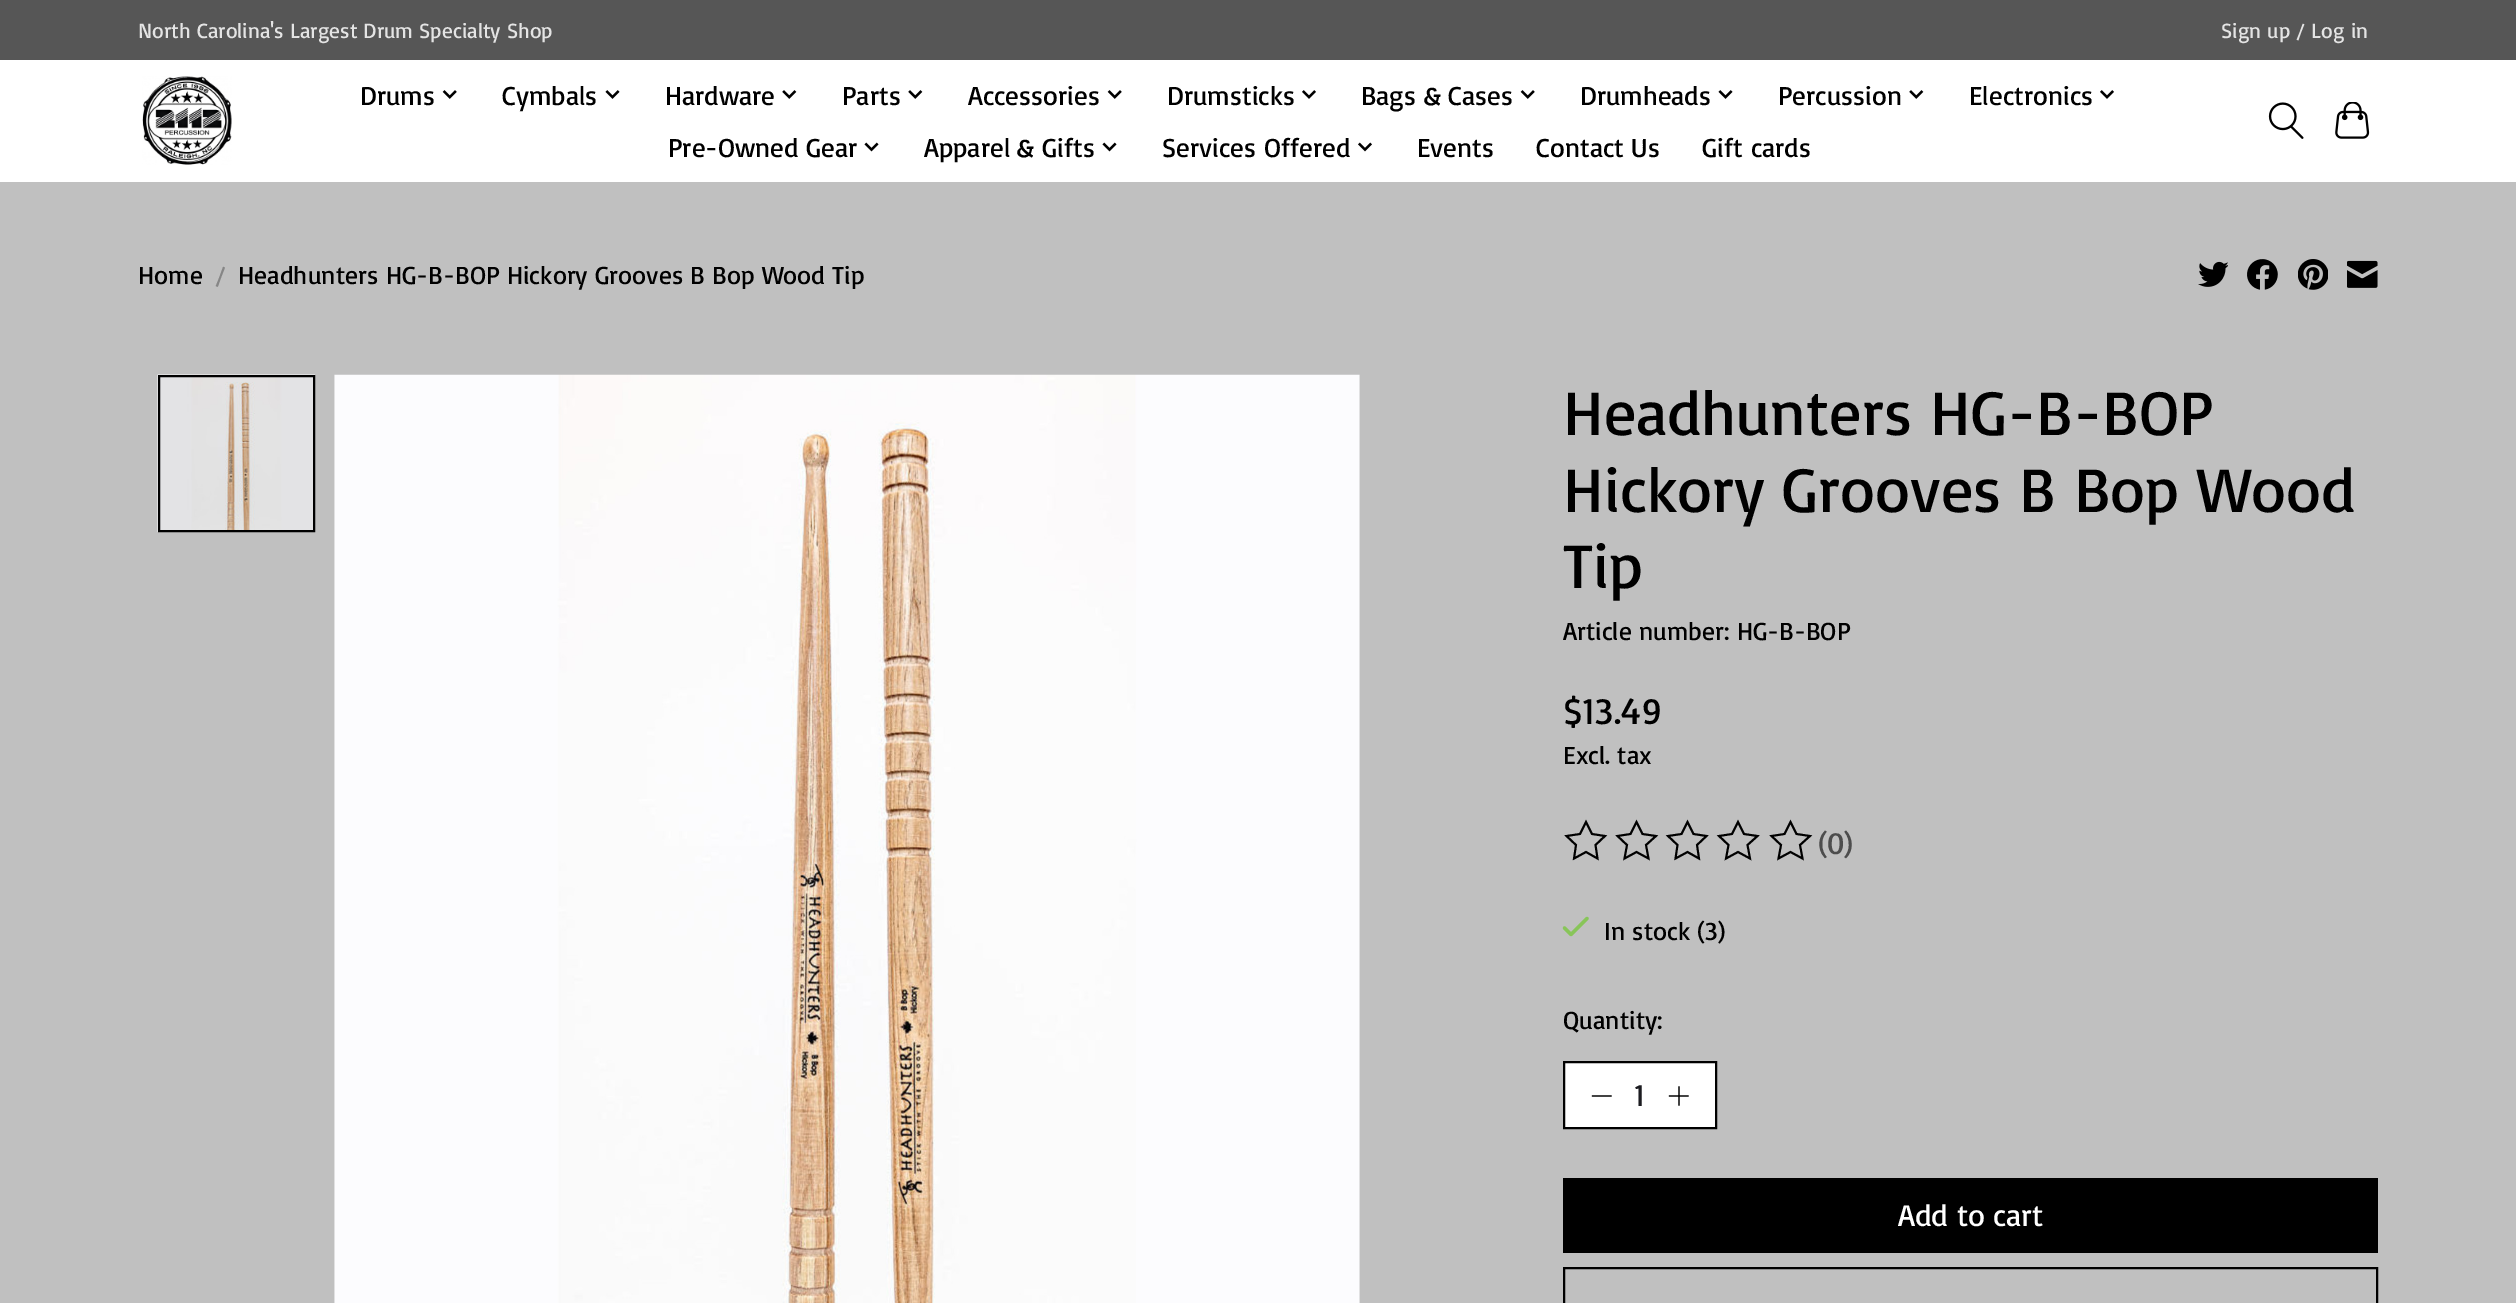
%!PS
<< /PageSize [2516 1303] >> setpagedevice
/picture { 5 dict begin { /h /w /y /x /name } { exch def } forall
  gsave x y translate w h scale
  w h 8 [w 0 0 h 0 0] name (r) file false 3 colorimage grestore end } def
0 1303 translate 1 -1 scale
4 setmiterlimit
0.753 setgray
0 0 2516 1303 rectfill
1 setgray
0 60 2516 122 rectfill
0.337 setgray
0 0 2516 60 rectfill
/Basic-Regular [21.4 0 0 -21.4 0 0] selectfont
0.894 setgray
138 38 moveto (North Carolina's Largest Drum Specialty Shop) show
2221 38 moveto (Sign up / Log in) show
(img1.rgb) 142 76 90 89 picture
/Basic-Regular [27 0 0 -27 0 0] selectfont
0 setgray
360 105 moveto (Drums) show
(img2.rgb) 442 90 15 9 picture
502 105 moveto (Cymbals) show
(img3.rgb) 605 90 15 9 picture
665 105 moveto (Hardware) show
(img4.rgb) 782 90 15 9 picture
842 105 moveto (Parts) show
(img4.rgb) 908 90 15 9 picture
968 105 moveto (Accessories) show
(img2.rgb) 1107 90 15 9 picture
1167 105 moveto (Drumsticks) show
(img5.rgb) 1302 90 14 9 picture
1361 105 moveto (Bags & Cases) show
(img2.rgb) 1520 90 15 9 picture
1580 105 moveto (Drumheads) show
(img3.rgb) 1718 90 15 9 picture
1778 105 moveto (Percussion) show
(img4.rgb) 1909 90 15 9 picture
1969 105 moveto (Electronics) show
(img5.rgb) 2100 90 14 9 picture
668 157 moveto (Pre-Owned Gear) show
(img6.rgb) 864 142 15 10 picture
924 157 moveto (Apparel & Gifts) show
(img6.rgb) 1102 142 15 10 picture
1162 157 moveto (Services Offered) show
(img7.rgb) 1358 142 14 10 picture
1417 157 moveto (Events) show
1536 157 moveto (Contact Us) show
1702 157 moveto (Gift cards) show
(img8.rgb) 2268 102 36 37 picture
(img9.rgb) 2335 102 35 37 picture
/Basic-Regular [25.7 0 0 -25.7 0 0] selectfont
138 284 moveto (Home) show
0.525 setgray
215 284 moveto (/) show
0 setgray
238 284 moveto (Headhunters HG-B-BOP Hickory Grooves B Bop Wood Tip) show
(img10.rgb) 2198 261 30 26 picture
(img11.rgb) 2247 259 31 31 picture
(img12.rgb) 2298 259 30 31 picture
(img13.rgb) 2347 260 31 28 picture
(img14.rgb) 157 374 158 158 picture
2 setlinewidth
159 376 155 155 rectstroke
(img15.rgb) 334 374 1026 929 picture
/Basic-Regular [63.9 0 0 -63.9 0 0] selectfont
1563 435 moveto (Headhunters HG-B-BOP) show
1563 512 moveto (Hickory Grooves B Bop Wood) show
1563 588 moveto (Tip) show
/Basic-Regular [25.7 0 0 -25.7 0 0] selectfont
1563 640 moveto (Article number: HG-B-BOP) show
/Basic-Regular [37 0 0 -37 0 0] selectfont
1563 724 moveto ($13.49) show
/Basic-Regular [25.7 0 0 -25.7 0 0] selectfont
1563 764 moveto (Excl. tax) show
1.9 setlinewidth
newpath 1586 822 moveto 1592 834 lineto 1605 836 lineto 1595.5 845 lineto 1597.5 858.5 lineto 1586 852 lineto 1574 858.5 lineto 1576 845 lineto 1566.5 836 lineto 1580 834 lineto closepath stroke
newpath 1636.5 822 moveto 1642.5 834 lineto 1656 836 lineto 1646 845 lineto 1648.5 858.5 lineto 1636.5 852 lineto 1624.5 858.5 lineto 1627 845 lineto 1617.5 836 lineto 1630.5 834 lineto closepath stroke
newpath 1687.5 822 moveto 1693.5 834 lineto 1706.5 836 lineto 1697 845 lineto 1699 858.5 lineto 1687.5 852 lineto 1675.5 858.5 lineto 1677.5 845 lineto 1668 836 lineto 1681.5 834 lineto closepath stroke
newpath 1738 822 moveto 1744 834 lineto 1757.5 836 lineto 1747.5 845 lineto 1750 858.5 lineto 1738 852 lineto 1726 858.5 lineto 1728.5 845 lineto 1719 836 lineto 1732 834 lineto closepath stroke
newpath 1790.5 822 moveto 1796.5 834 lineto 1810 836 lineto 1800 845 lineto 1802.5 858.5 lineto 1790.5 852 lineto 1778.5 858.5 lineto 1781 845 lineto 1771.5 836 lineto 1784.5 834 lineto closepath stroke
/Basic-Regular [31 0 0 -31 0 0] selectfont
0.302 setgray
1818 854 moveto (\(0\)) show
0.533 0.773 0.349 setrgbcolor
3.2 setlinewidth
1 setlinecap
1 setlinejoin
newpath 1564.5 928 moveto 1571 934.5 lineto 1587 918.5 lineto stroke
/Basic-Regular [25.7 0 0 -25.7 0 0] selectfont
0 setgray
1604 940 moveto (In stock \(3\)) show
1563 1029 moveto (Quantity:) show
1 setgray
newpath 1564 1062 moveto 1716 1062 lineto 1716 1128 lineto 1564 1128 lineto closepath gsave fill grestore
0 setgray
2 setlinewidth
0 setlinecap
0 setlinejoin
stroke
1.3 setlinewidth
1 setlinecap
1 setlinejoin
newpath 1592.5 1096 moveto 1611 1096 lineto stroke
/Basic-Regular [31 0 0 -31 0 0] selectfont
0.11 0.11 0.129 setrgbcolor
1634 1106 moveto (1) show
0 setgray
newpath 1679 1087 moveto 1679 1105 lineto 1669.5 1096 moveto 1688 1096 lineto stroke
1563 1178 815 75 rectfill
1 setgray
1898 1226 moveto (Add to cart) show
0 setgray
2 setlinewidth
0 setlinecap
0 setlinejoin
1564 1268 813 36 rectstroke
showpage
